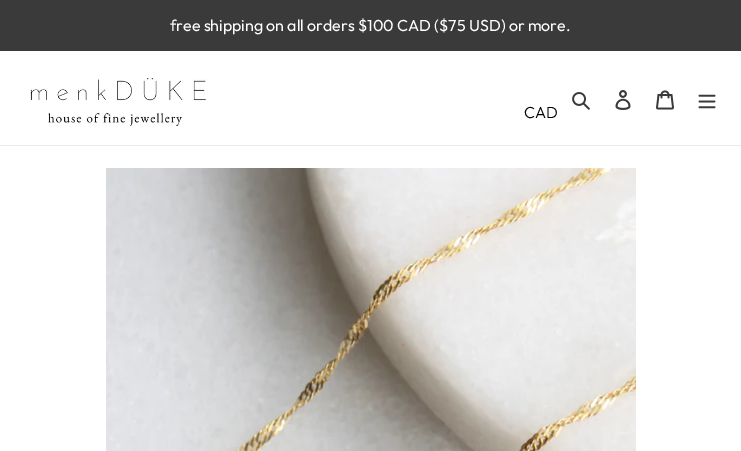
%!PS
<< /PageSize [741 451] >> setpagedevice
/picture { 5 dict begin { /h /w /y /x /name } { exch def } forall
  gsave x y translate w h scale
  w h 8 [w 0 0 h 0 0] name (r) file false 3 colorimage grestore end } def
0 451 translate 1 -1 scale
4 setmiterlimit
1 setgray
0 0 741 451 rectfill
0.227 setgray
0 0 741 51 rectfill
/Outfit-Regular [16 0 0 -16 0 0] selectfont
1 setgray
170 31 moveto (free shipping on all orders $100 CAD \($75 USD\) or more.) show
0.922 setgray
0 145 741 1 rectfill
(img1.rgb) 30 78 176 49 picture
(img2.rgb) 572 92 18 18 picture
(img3.rgb) 615 90 16 20 picture
(img4.rgb) 656 90 18 20 picture
(img5.rgb) 698 94 18 15 picture
/Outfit-Light [16 0 0 -16 0 0] selectfont
0 setgray
524 118 moveto (CAD) show
(img6.rgb) 106 168 530 283 picture
showpage
